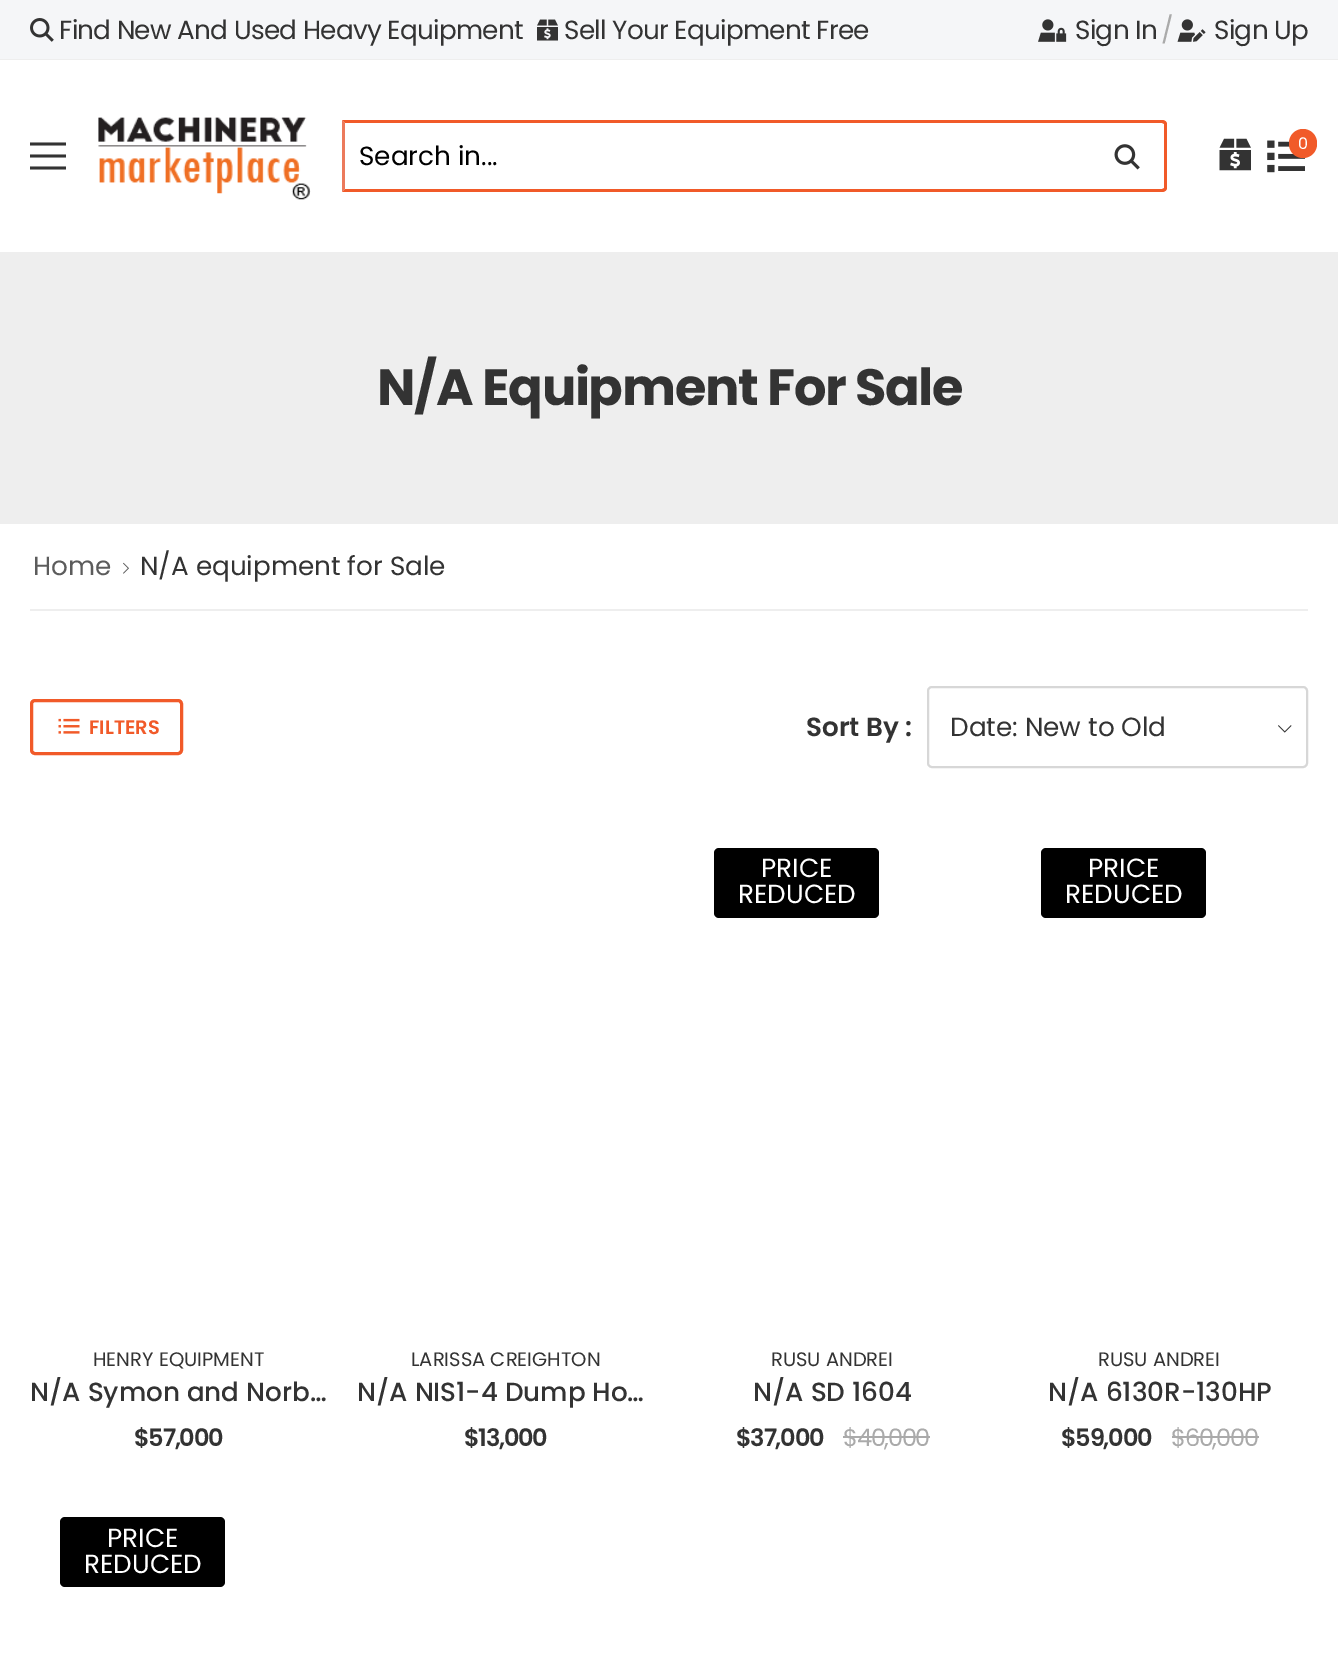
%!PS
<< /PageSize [1338 1667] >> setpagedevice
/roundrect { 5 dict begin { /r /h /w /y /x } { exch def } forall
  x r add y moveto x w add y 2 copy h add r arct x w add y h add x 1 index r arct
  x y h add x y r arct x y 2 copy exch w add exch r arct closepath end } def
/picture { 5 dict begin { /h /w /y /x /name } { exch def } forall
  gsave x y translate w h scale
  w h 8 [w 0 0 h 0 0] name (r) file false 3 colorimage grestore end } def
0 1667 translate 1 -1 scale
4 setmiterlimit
1 setgray
0 0 1338 1667 rectfill
0.961 0.965 0.973 setrgbcolor
0 0 1338 59 rectfill
0.933 setgray
0 59 1338 1 rectfill
(img1.rgb) 30 18 24 24 picture
/Poppins-Regular [26.25 0 0 -26.25 0 0] selectfont
0.2 setgray
59 39 moveto -0.7 0 (Find New And Used Heavy Equipment) ashow
(img2.rgb) 537 19 21 22 picture
564 39 moveto -0.7 0 (Sell Your Equipment Free) ashow
(img3.rgb) 1038 19 29 23 picture
1075 39 moveto -0.7 0 (Sign In) ashow
0.667 setgray
1161 39 moveto -0.7 0 (/) ashow
(img4.rgb) 1177 19 29 23 picture
0.2 setgray
1214 39 moveto -0.7 0 (Sign Up) ashow
0.933 setgray
0 252 1338 272 rectfill
(img5.rgb) 1219 138 32 33 picture
(img6.rgb) 1267 140 38 33 picture
0.945 0.353 0.161 setrgbcolor
1289 129 28 29 14 roundrect fill
/Poppins-Regular [16 0 0 -16 0 0] selectfont
1 setgray
1298 149 moveto (0) show
0.2 setgray
newpath 30 142.5 moveto 30 145.5 lineto 66 145.5 lineto 66 142.5 lineto closepath 30 154.5 moveto 30 157.5 lineto 66 157.5 lineto 66 154.5 lineto closepath 30 166.5 moveto 30 169.5 lineto 66 169.5 lineto 66 166.5 lineto closepath fill
(img7.rgb) 98 117 213 83 picture
0.945 0.353 0.161 setrgbcolor
newpath 342 120 moveto 1090 120 lineto 1090 123 lineto 345 123 lineto closepath fill
newpath 1090 192 moveto 342 192 lineto 345 189 lineto 1090 189 lineto closepath fill
0.925 0.478 0.361 setrgbcolor
newpath 342 192 moveto 342 120 lineto 345 123 lineto 345 189 lineto closepath fill
/Poppins-Regular [26.25 0 0 -26.25 0 0] selectfont
0 setgray
359 165 moveto (Search in...) show
0.945 0.353 0.161 setrgbcolor
newpath 1090 120 moveto 1162 120 lineto 1165 120 1167 122 1167 124 curveto 1167 188 lineto 1167 190 1165 192 1162 192 curveto 1090 192 lineto closepath 1090 123 moveto 1162 123 lineto 1163 123 1164 124 1164 124 curveto 1164 188 lineto 1164 188 1163 189 1162 189 curveto 1090 189 lineto closepath eofill
(img8.rgb) 1114 144 26 26 picture
/Poppins-Bold [51 0 0 -51 0 0] selectfont
0.2 setgray
377 405 moveto -1.25 0 (N/A Equipment For Sale) ashow
0.933 setgray
30 609 1278 2 rectfill
/Poppins-Regular [26.25 0 0 -26.25 0 0] selectfont
0.361 setgray
33 575 moveto (Home) show
(img9.rgb) 123 562 6 12 picture
0.2 setgray
140 575 moveto (N/A equipment for Sale) show
0.945 0.353 0.161 setrgbcolor
3 setlinewidth
31.5 700.5 150 53 3.5 roundrect stroke
(img10.rgb) 58 718 22 16 picture
/Poppins-SemiBold [19.5 0 0 -19.5 0 0] selectfont
89 734 moveto (FILTERS) show
/Poppins-SemiBold [26.25 0 0 -26.25 0 0] selectfont
0.2 setgray
806 736 moveto (Sort By :) show
(img11.rgb) 1278 725 14 8 picture
0.843 setgray
2 setlinewidth
928 687 379 80 4 roundrect stroke
/Poppins-Regular [26.25 0 0 -26.25 0 0] selectfont
0.2 setgray
950 736 moveto (Date: New to Old) show
/Poppins-Regular [19.5 0 0 -19.5 0 0] selectfont
93 1366 moveto (HENRY EQUIPMENT) show
gsave
30 1377 297 32 rectclip
/Poppins-Medium [26.25 0 0 -26.25 0 0] selectfont
30 1401 moveto (N/A Symon and Norb…) show
grestore
/Poppins-SemiBold [24 0 0 -24 0 0] selectfont
134 1446 moveto -1.25 0 ($57,000) ashow
/Poppins-Regular [19.5 0 0 -19.5 0 0] selectfont
411 1366 moveto (LARISSA CREIGHTON) show
gsave
357 1377 297 32 rectclip
/Poppins-Medium [26.25 0 0 -26.25 0 0] selectfont
357 1401 moveto (N/A NIS1-4 Dump Ho…) show
grestore
/Poppins-SemiBold [24 0 0 -24 0 0] selectfont
464 1446 moveto -1.25 0 ($13,000) ashow
0 setgray
714 848 165 70 5 roundrect fill
/Poppins-Regular [26.25 0 0 -26.25 0 0] selectfont
1 setgray
761 877 moveto (PRICE) show
738 903 moveto (REDUCED) show
/Poppins-Regular [19.5 0 0 -19.5 0 0] selectfont
0.2 setgray
771 1366 moveto (RUSU ANDREI) show
gsave
684 1377 297 32 rectclip
/Poppins-Medium [26.25 0 0 -26.25 0 0] selectfont
753 1401 moveto (N/A SD 1604) show
grestore
/Poppins-SemiBold [24 0 0 -24 0 0] selectfont
736 1446 moveto -1.25 0 ($37,000) ashow
/Poppins-Regular [24 0 0 -24 0 0] selectfont
0.667 setgray
843 1446 moveto -1.25 0 ($40,000) ashow
843 1436 87 2 rectfill
0 setgray
1041 848 165 70 5 roundrect fill
/Poppins-Regular [26.25 0 0 -26.25 0 0] selectfont
1 setgray
1088 877 moveto (PRICE) show
1065 903 moveto (REDUCED) show
/Poppins-Regular [19.5 0 0 -19.5 0 0] selectfont
0.2 setgray
1098 1366 moveto (RUSU ANDREI) show
gsave
1011 1377 297 32 rectclip
/Poppins-Medium [26.25 0 0 -26.25 0 0] selectfont
1048 1401 moveto (N/A 6130R-130HP) show
grestore
/Poppins-SemiBold [24 0 0 -24 0 0] selectfont
1061 1446 moveto -1.25 0 ($59,000) ashow
/Poppins-Regular [24 0 0 -24 0 0] selectfont
0.667 setgray
1171 1446 moveto -1.25 0 ($60,000) ashow
1172 1436 87 2 rectfill
0 setgray
60 1517 165 70 5 roundrect fill
/Poppins-Regular [26.25 0 0 -26.25 0 0] selectfont
1 setgray
107 1547 moveto (PRICE) show
84 1573 moveto (REDUCED) show
showpage
